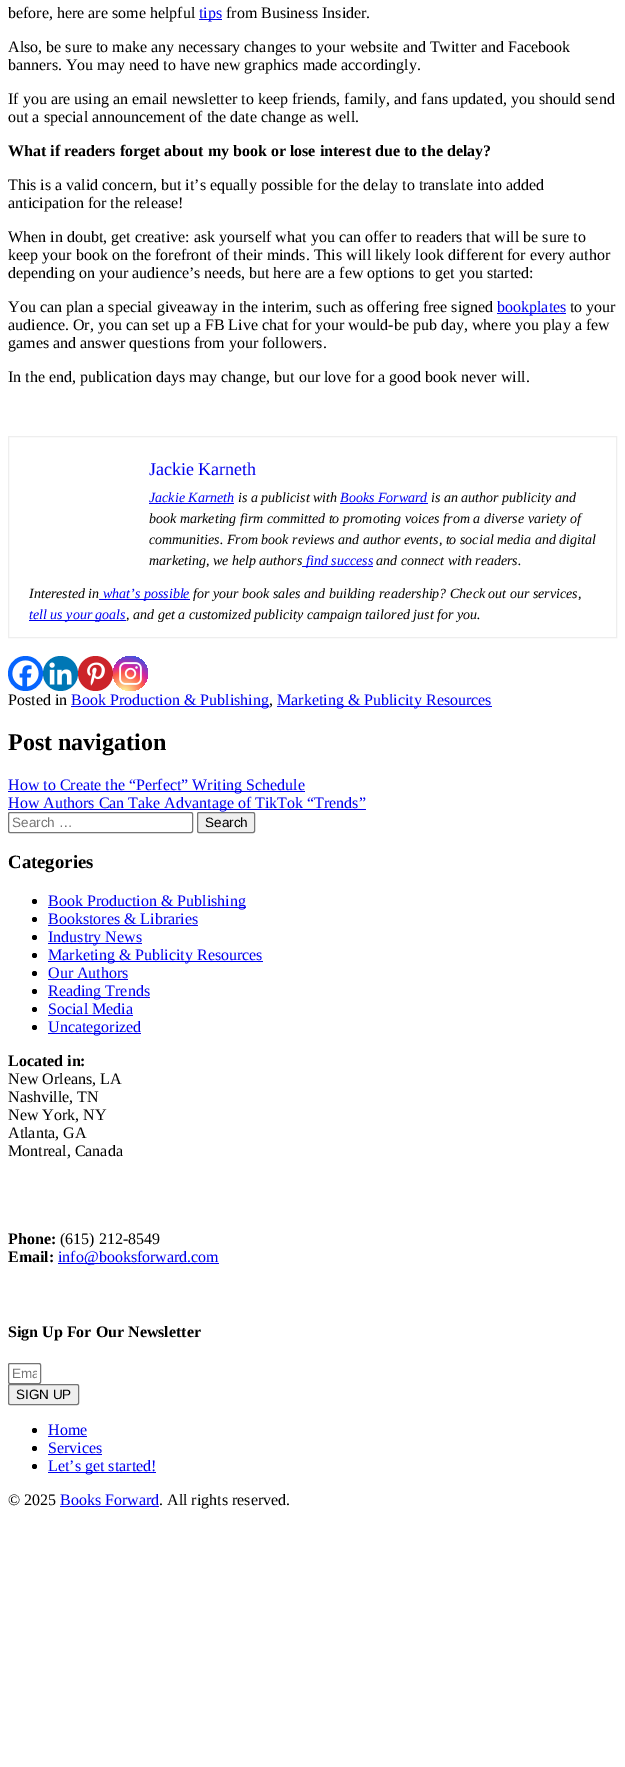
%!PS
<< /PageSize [625 1767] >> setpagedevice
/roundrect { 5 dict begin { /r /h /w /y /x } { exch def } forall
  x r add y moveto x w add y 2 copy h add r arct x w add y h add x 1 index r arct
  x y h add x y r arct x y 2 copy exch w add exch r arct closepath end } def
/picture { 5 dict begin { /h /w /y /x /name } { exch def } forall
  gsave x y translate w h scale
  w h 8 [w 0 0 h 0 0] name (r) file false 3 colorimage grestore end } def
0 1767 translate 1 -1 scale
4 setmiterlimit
1 setgray
0 0 625 1767 rectfill
/LiberationSerif-Regular [16 0 0 -16 0 0] selectfont
0 setgray
8 18 moveto (before, here are some helpful) show
0 0 0.933 setrgbcolor
199 19 23 1 rectfill
199 18 moveto (tips) show
0 setgray
226 18 moveto (from Business Insider.) show
8 52 moveto (Also, be sure to make any necessary changes to your website and Twitter and Facebook) show
8 70 moveto (banners. You may need to have new graphics made accordingly.) show
8 104 moveto (If you are using an email newsletter to keep friends, family, and fans updated, you should send) show
8 122 moveto (out a special announcement of the date change as well.) show
/LiberationSerif-Bold [16 0 0 -16 0 0] selectfont
8 156 moveto (What if readers forget about my book or lose interest due to the delay?) show
/LiberationSerif-Regular [16 0 0 -16 0 0] selectfont
8 190 moveto (This is a valid concern, but it’s equally possible for the delay to translate into added) show
8 208 moveto (anticipation for the release!) show
8 242 moveto (When in doubt, get creative: ask yourself what you can offer to readers that will be sure to) show
8 260 moveto (keep your book on the forefront of their minds. This will likely look different for every author) show
8 278 moveto (depending on your audience’s needs, but here are a few options to get you started:) show
8 312 moveto (You can plan a special giveaway in the interim, such as offering free signed) show
0 0 0.933 setrgbcolor
497 313 69 1 rectfill
497 312 moveto (bookplates) show
0 setgray
570 312 moveto (to your) show
8 330 moveto (audience. Or, you can set up a FB Live chat for your would-be pub day, where you play a few) show
8 348 moveto (games and answer questions from your followers.) show
8 382 moveto (In the end, publication days may change, but our love for a good book never will.) show
0.933 setgray
8.5 436.5 608 201 rectstroke
/LiberationSerif-Regular [18 0 0 -18 0 0] selectfont
0 0 0.933 setrgbcolor
149 475 moveto (Jackie Karneth) show
/LiberationSerif-Italic [14 0 0 -14 0 0] selectfont
149 502 moveto (Jackie Karneth) show
149 503 85 1 rectfill
0 setgray
238 502 moveto (is a publicist with) show
0 0 0.933 setrgbcolor
340 502 moveto (Books Forward) show
340 503 88 1 rectfill
0 setgray
431 502 moveto (is an author publicity and) show
149 523 moveto (book marketing firm committed to promoting voices from a diverse variety of) show
149 544 moveto (communities. From book reviews and author events, to social media and digital) show
149 565 moveto (marketing, we help authors) show
0 0 0.933 setrgbcolor
302 566 71 1 rectfill
306 565 moveto (find success) show
0 setgray
376 565 moveto (and connect with readers.) show
29 598 moveto (Interested in) show
0 0 0.933 setrgbcolor
99 599 91 1 rectfill
103 598 moveto (what’s possible) show
0 setgray
193 598 moveto (for your book sales and building readership? Check out our services,) show
0 0 0.933 setrgbcolor
29 620 97 1 rectfill
29 619 moveto (tell us your goals) show
0 setgray
126 619 moveto (, and get a customized publicity campaign tailored just for you.) show
0.027 0.396 0.996 setrgbcolor
newpath 25.5 673.5 17.5 0 360 arc closepath fill
(img1.rgb) 12 660 27 27 picture
0 0.467 0.71 setrgbcolor
newpath 60.5 673.5 17.5 0 360 arc closepath fill
(img2.rgb) 49 662 23 23 picture
0.8 0.137 0.161 setrgbcolor
newpath 95.5 673.5 17.5 0 360 arc closepath fill
(img3.rgb) 87 662 18 24 picture
gsave newpath 130.5 673.5 17.5 0 360 arc closepath clip newpath 124 693 translate 45 45 scale
<< /ShadingType 3 /ColorSpace /DeviceRGB /Coords [0 0 0 0 0 1] /Extend [true true] /Function << /FunctionType 3 /Domain [0 1] /Functions [<< /FunctionType 2 /Domain [0 1] /C0 [0.992 0.957 0.592] /C1 [0.992 0.957 0.592] /N 1 >> << /FunctionType 2 /Domain [0 1] /C0 [0.992 0.957 0.592] /C1 [0.992 0.349 0.286] /N 1 >> << /FunctionType 2 /Domain [0 1] /C0 [0.992 0.349 0.286] /C1 [0.839 0.141 0.624] /N 1 >> << /FunctionType 2 /Domain [0 1] /C0 [0.839 0.141 0.624] /C1 [0.157 0.353 0.922] /N 1 >> << /FunctionType 2 /Domain [0 1] /C0 [0.157 0.353 0.922] /C1 [0.157 0.353 0.922] /N 1 >>] /Bounds [0.05 0.45 0.6 0.9] /Encode [0 1 0 1 0 1 0 1 0 1] >> >> shfill grestore
(img4.rgb) 119 662 23 23 picture
/LiberationSerif-Regular [16 0 0 -16 0 0] selectfont
0 setgray
8 705 moveto (Posted in) show
0 0 0.933 setrgbcolor
71 706 198 1 rectfill
71 705 moveto (Book Production & Publishing) show
0 setgray
269 705 moveto (,) show
0 0 0.933 setrgbcolor
277 706 215 1 rectfill
277 705 moveto (Marketing & Publicity Resources) show
/LiberationSerif-Bold [24 0 0 -24 0 0] selectfont
0 setgray
8 750 moveto (Post navigation) show
0 0 0.933 setrgbcolor
8 791 297 1 rectfill
/LiberationSerif-Regular [16 0 0 -16 0 0] selectfont
8 790 moveto (How to Create the “Perfect” Writing Schedule) show
8 809 358 1 rectfill
8 808 moveto (How Authors Can Take Advantage of TikTok “Trends”) show
0.463 setgray
8.5 812.5 184 20 1.5 roundrect stroke
/LiberationSans-Regular [13.5 0 0 -13.5 0 0] selectfont
0.459 setgray
12 827 moveto (Search …) show
0.937 setgray
197.5 812.5 57 20 1.5 roundrect gsave fill grestore
0.463 setgray
stroke
0 setgray
205 827 moveto (Search) show
/LiberationSerif-Bold [18.75 0 0 -18.75 0 0] selectfont
8 868 moveto (Categories) show
newpath 34.5 901.5 2.5 0 360 arc closepath fill
0 0 0.933 setrgbcolor
48 907 198 1 rectfill
/LiberationSerif-Regular [16 0 0 -16 0 0] selectfont
48 906 moveto (Book Production & Publishing) show
0 setgray
newpath 34.5 919.5 2.5 0 360 arc closepath fill
0 0 0.933 setrgbcolor
48 924 moveto (Bookstores & Libraries) show
48 925 150 1 rectfill
0 setgray
newpath 34.5 937.5 2.5 0 360 arc closepath fill
0 0 0.933 setrgbcolor
48 943 94 1 rectfill
48 942 moveto (Industry News) show
0 setgray
newpath 34.5 955.5 2.5 0 360 arc closepath fill
0 0 0.933 setrgbcolor
48 961 215 1 rectfill
48 960 moveto (Marketing & Publicity Resources) show
0 setgray
newpath 34.5 973.5 2.5 0 360 arc closepath fill
0 0 0.933 setrgbcolor
48 978 moveto (Our Authors) show
48 979 80 1 rectfill
0 setgray
newpath 34.5 991.5 2.5 0 360 arc closepath fill
0 0 0.933 setrgbcolor
48 997 102 1 rectfill
48 996 moveto (Reading Trends) show
0 setgray
newpath 34.5 1009.5 2.5 0 360 arc closepath fill
0 0 0.933 setrgbcolor
48 1014 moveto (Social Media) show
48 1015 85 1 rectfill
0 setgray
newpath 34.5 1027.5 2.5 0 360 arc closepath fill
0 0 0.933 setrgbcolor
48 1033 93 1 rectfill
48 1032 moveto (Uncategorized) show
/LiberationSerif-Bold [16 0 0 -16 0 0] selectfont
0 setgray
8 1066 moveto (Located in:) show
/LiberationSerif-Regular [16 0 0 -16 0 0] selectfont
8 1084 moveto (New Orleans, LA) show
8 1102 moveto (Nashville, TN) show
8 1120 moveto (New York, NY) show
8 1138 moveto (Atlanta, GA) show
8 1156 moveto (Montreal, Canada) show
/LiberationSerif-Bold [16 0 0 -16 0 0] selectfont
8 1244 moveto (Phone:) show
/LiberationSerif-Regular [16 0 0 -16 0 0] selectfont
60 1244 moveto (\(615\) 212-8549) show
/LiberationSerif-Bold [16 0 0 -16 0 0] selectfont
8 1262 moveto (Email:) show
0 0 0.933 setrgbcolor
58 1263 161 1 rectfill
/LiberationSerif-Regular [16 0 0 -16 0 0] selectfont
58 1262 moveto (info@booksforward.com) show
/LiberationSerif-Bold [16 0 0 -16 0 0] selectfont
0 setgray
8 1337 moveto (Sign Up For Our Newsletter) show
0.463 setgray
8.5 1363.5 32 20 1.5 roundrect stroke
gsave
12 1366 25 15 rectclip
/LiberationSans-Regular [13.5 0 0 -13.5 0 0] selectfont
0.459 setgray
12 1378 moveto (Ema) show
grestore
0.937 setgray
8.5 1384.5 70 20 1.5 roundrect gsave fill grestore
0.463 setgray
stroke
/LiberationSans-Regular [13.5 0 0 -13.5 0 0] selectfont
0 setgray
16 1399 moveto (SIGN UP) show
newpath 34.5 1430.5 2.5 0 360 arc closepath fill
/LiberationSerif-Regular [16 0 0 -16 0 0] selectfont
0 0 0.933 setrgbcolor
48 1435 moveto (Home) show
48 1436 39 1 rectfill
0 setgray
newpath 34.5 1448.5 2.5 0 360 arc closepath fill
0 0 0.933 setrgbcolor
48 1453 moveto (Services) show
48 1454 54 1 rectfill
0 setgray
newpath 34.5 1466.5 2.5 0 360 arc closepath fill
0 0 0.933 setrgbcolor
48 1472 108 1 rectfill
48 1471 moveto (Let’s get started!) show
0 setgray
8 1505 moveto (© 2025) show
0 0 0.933 setrgbcolor
60 1505 moveto (Books Forward) show
60 1506 99 1 rectfill
0 setgray
159 1505 moveto (. All rights reserved.) show
showpage
